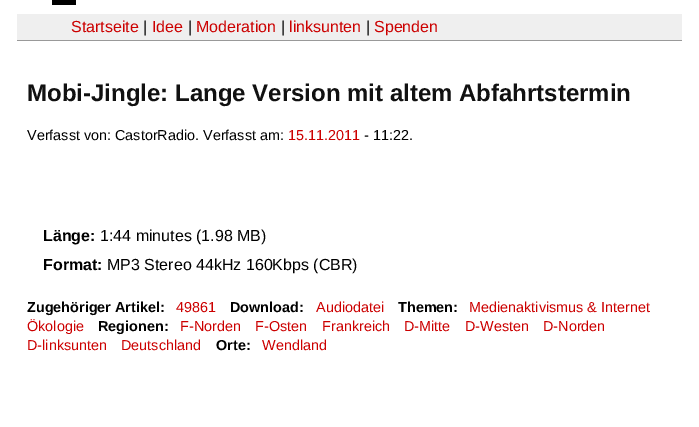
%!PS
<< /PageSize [699 427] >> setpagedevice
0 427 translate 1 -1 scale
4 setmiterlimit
1 setgray
0 0 699 427 rectfill
0 setgray
52 0 24 5 rectfill
0.937 setgray
17 14 665 26 rectfill
0.6 setgray
17 40 665 1 rectfill
/LiberationSans-Regular [16 0 0 -16 0 0] selectfont
0.8 0 0 setrgbcolor
71 32 moveto (Startseite) show
0 setgray
143 32 moveto (|) show
0.8 0 0 setrgbcolor
152 32 moveto (Idee) show
0 setgray
188 32 moveto (|) show
0.8 0 0 setrgbcolor
196 32 moveto (Moderation) show
0 setgray
281 32 moveto (|) show
0.8 0 0 setrgbcolor
289 32 moveto (linksunten) show
0 setgray
366 32 moveto (|) show
0.8 0 0 setrgbcolor
374 32 moveto (Spenden) show
/LiberationSans-Bold [24 0 0 -24 0 0] selectfont
0.067 setgray
27 101 moveto (Mobi-Jingle: Lange Version mit altem Abfahrtstermin) show
/LiberationSans-Regular [14.4 0 0 -14.4 0 0] selectfont
0 setgray
27 140 moveto (Verfasst von: CastorRadio. Verfasst am:) show
0.8 0 0 setrgbcolor
288 140 moveto (15.11.2011) show
0 setgray
364 140 moveto (- 11:22.) show
/LiberationSans-Bold [16 0 0 -16 0 0] selectfont
43 241 moveto (Länge:) show
/LiberationSans-Regular [16 0 0 -16 0 0] selectfont
100 241 moveto (1:44 minutes \(1.98 MB\)) show
/LiberationSans-Bold [16 0 0 -16 0 0] selectfont
43 270 moveto (Format:) show
/LiberationSans-Regular [16 0 0 -16 0 0] selectfont
107 270 moveto (MP3 Stereo 44kHz 160Kbps \(CBR\)) show
/LiberationSans-Bold [14.4 0 0 -14.4 0 0] selectfont
27 312 moveto (Zugehöriger Artikel:) show
/LiberationSans-Regular [14.4 0 0 -14.4 0 0] selectfont
0.8 0 0 setrgbcolor
176 312 moveto (49861) show
/LiberationSans-Bold [14.4 0 0 -14.4 0 0] selectfont
0 setgray
230 312 moveto (Download:) show
/LiberationSans-Regular [14.4 0 0 -14.4 0 0] selectfont
0.8 0 0 setrgbcolor
316 312 moveto (Audiodatei) show
/LiberationSans-Bold [14.4 0 0 -14.4 0 0] selectfont
0 setgray
398 312 moveto (Themen:) show
/LiberationSans-Regular [14.4 0 0 -14.4 0 0] selectfont
0.8 0 0 setrgbcolor
469 312 moveto (Medienaktivismus & Internet) show
27 331 moveto (Ökologie) show
/LiberationSans-Bold [14.4 0 0 -14.4 0 0] selectfont
0 setgray
98 331 moveto (Regionen:) show
/LiberationSans-Regular [14.4 0 0 -14.4 0 0] selectfont
0.8 0 0 setrgbcolor
180 331 moveto (F-Norden) show
255 331 moveto (F-Osten) show
322 331 moveto (Frankreich) show
404 331 moveto (D-Mitte) show
465 331 moveto (D-Westen) show
543 331 moveto (D-Norden) show
27 350 moveto (D-linksunten) show
121 350 moveto (Deutschland) show
/LiberationSans-Bold [14.4 0 0 -14.4 0 0] selectfont
0 setgray
216 350 moveto (Orte:) show
/LiberationSans-Regular [14.4 0 0 -14.4 0 0] selectfont
0.8 0 0 setrgbcolor
262 350 moveto (Wendland) show
showpage
